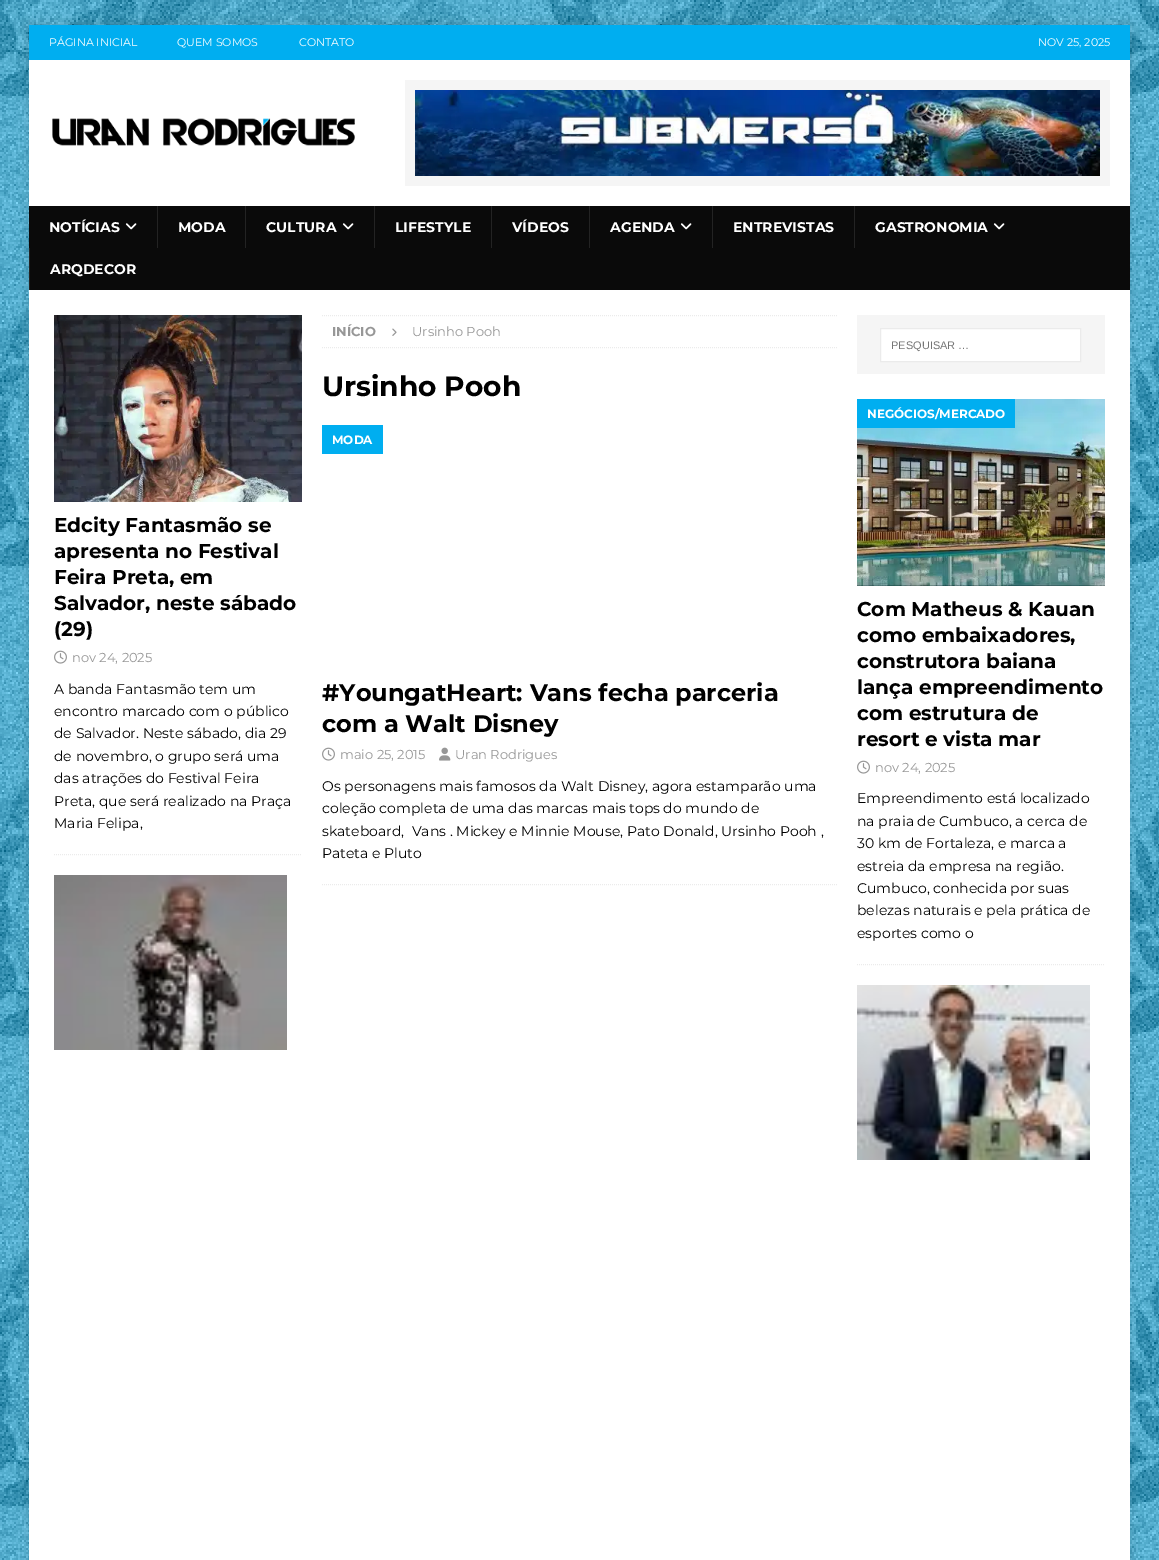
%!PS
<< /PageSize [1159 1560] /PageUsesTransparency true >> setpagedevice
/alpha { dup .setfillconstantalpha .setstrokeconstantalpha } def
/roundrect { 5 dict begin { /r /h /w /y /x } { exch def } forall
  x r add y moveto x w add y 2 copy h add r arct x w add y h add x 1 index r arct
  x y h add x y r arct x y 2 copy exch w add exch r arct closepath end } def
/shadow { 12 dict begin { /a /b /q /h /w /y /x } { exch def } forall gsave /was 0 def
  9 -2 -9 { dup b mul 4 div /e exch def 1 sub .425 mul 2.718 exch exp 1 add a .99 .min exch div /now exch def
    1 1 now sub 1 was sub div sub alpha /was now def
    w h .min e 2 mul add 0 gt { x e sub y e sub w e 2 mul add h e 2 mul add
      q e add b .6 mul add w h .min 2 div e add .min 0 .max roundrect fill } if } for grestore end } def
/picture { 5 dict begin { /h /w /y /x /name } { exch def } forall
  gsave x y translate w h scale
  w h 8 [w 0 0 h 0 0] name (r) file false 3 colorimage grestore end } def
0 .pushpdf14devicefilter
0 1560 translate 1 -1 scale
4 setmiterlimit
1 setgray
0 0 1159 1560 rectfill
(img1.rgb) 0 0 1159 1560 picture
0.196 setgray
29 25 1101 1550 0 5 0.17 shadow
0 0.682 0.941 setrgbcolor
29 25 1101 35 rectfill
/Montserrat-Regular [11 0 0 -11 0 0] selectfont
1 setgray
49 46 moveto (PÁGINA INICIAL) show
177 46 moveto (QUEM SOMOS) show
299 46 moveto (CONTATO) show
1038 46 moveto (NOV 25, 2025) show
29 60 1101 146 rectfill
(img2.rgb) 52 118 303 28 picture
0.961 setgray
405 80 705 106 rectfill
(img3.rgb) 415 90 685 86 picture
0.039 setgray
29 206 1101 84 rectfill
/Montserrat-Bold [14 0 0 -14 0 0] selectfont
1 setgray
49 232 moveto (NOTÍCIAS) show
(img4.rgb) 125 223 12 7 picture
0.137 setgray
157 206 1 42 rectfill
1 setgray
178 232 moveto (MODA) show
0.137 setgray
245 206 1 42 rectfill
1 setgray
266 232 moveto (CULTURA) show
(img4.rgb) 342 223 12 7 picture
0.137 setgray
374 206 1 42 rectfill
1 setgray
395 232 moveto (LIFESTYLE) show
0.137 setgray
491 206 1 42 rectfill
1 setgray
512 232 moveto (VÍDEOS) show
0.137 setgray
589 206 1 42 rectfill
1 setgray
610 232 moveto (AGENDA) show
(img4.rgb) 680 223 12 7 picture
0.137 setgray
712 206 1 42 rectfill
1 setgray
733 232 moveto (ENTREVISTAS) show
0.137 setgray
854 206 1 42 rectfill
1 setgray
875 232 moveto (GASTRONOMIA) show
(img4.rgb) 993 223 12 7 picture
0.137 setgray
29 248 1 42 rectfill
1 setgray
50 274 moveto (ARQDECOR) show
29 290 1101 1270 rectfill
0.922 setgray
[1 1] 0 setdash
newpath 54 854.5 moveto 302 854.5 lineto stroke
(img5.rgb) 54 315 248 187 picture
/Montserrat-Bold [20 0 0 -20 0 0] selectfont
0 setgray
54 532 moveto (Edcity Fantasmão se) show
54 558 moveto (apresenta no Festival) show
54 584 moveto (Feira Preta, em) show
54 610 moveto (Salvador, neste sábado) show
54 636 moveto (\(29\)) show
(img6.rgb) 54 650 13 14 picture
/Montserrat-Regular [13 0 0 -13 0 0] selectfont
0.592 setgray
72 662 moveto (nov 24, 2025) show
/Montserrat-Regular [14 0 0 -14 0 0] selectfont
0 setgray
54 694 moveto (A banda Fantasmão tem um) show
54 716 moveto (encontro marcado com o público) show
54 738 moveto (de Salvador. Neste sábado, dia 29) show
54 761 moveto (de novembro, o grupo será uma) show
54 783 moveto (das atrações do Festival Feira) show
54 806 moveto (Preta, que será realizado na Praça) show
54 828 moveto (Maria Felipa,) show
(img7.rgb) 54 875 233 175 picture
0.922 setgray
newpath 322 315.5 moveto 838 315.5 lineto stroke
newpath 322 347.5 moveto 838 347.5 lineto stroke
/Montserrat-Bold [13 0 0 -13 0 0] selectfont
0.592 setgray
332 336 moveto (INÍCIO) show
(img8.rgb) 392 328 5 8 picture
/Montserrat-Regular [13 0 0 -13 0 0] selectfont
412 336 moveto (Ursinho Pooh) show
/Montserrat-Bold [28 0 0 -28 0 0] selectfont
0 setgray
322 396 moveto (Ursinho Pooh) show
0.922 setgray
newpath 322 884.5 moveto 838 884.5 lineto stroke
0 0.682 0.941 setrgbcolor
322 425 61 29 rectfill
/Montserrat-Bold [12 0 0 -12 0 0] selectfont
1 setgray
332 444 moveto (MODA) show
/Montserrat-Bold [24 0 0 -24 0 0] selectfont
0 setgray
322 701 moveto (#YoungatHeart: Vans fecha parceria) show
322 732 moveto (com a Walt Disney) show
(img6.rgb) 322 747 13 14 picture
/Montserrat-Regular [13 0 0 -13 0 0] selectfont
0.592 setgray
340 759 moveto (maio 25, 2015) show
(img9.rgb) 439 747 12 14 picture
455 759 moveto (Uran Rodrigues) show
/Montserrat-Regular [14 0 0 -14 0 0] selectfont
0 setgray
322 791 moveto (Os personagens mais famosos da Walt Disney, agora estamparão uma) show
322 813 moveto (coleção completa de uma das marcas mais tops do mundo de) show
322 836 moveto (skateboard,  Vans . Mickey e Minnie Mouse, Pato Donald, Ursinho Pooh ,) show
322 858 moveto (Pateta e Pluto) show
0.961 setgray
857 315 248 59 rectfill
1 setgray
newpath 880.5 328.5 moveto 1080.5 328.5 lineto 1080.5 361.5 lineto 880.5 361.5 lineto closepath gsave fill grestore
0.922 setgray
[] 0 setdash
stroke
/LiberationSans-Regular [11 0 0 -11 0 0] selectfont
0.459 setgray
891 349 moveto (PESQUISAR …) show
0.922 setgray
[1 1] 0 setdash
newpath 857 964.5 moveto 1105 964.5 lineto stroke
(img10.rgb) 857 399 248 187 picture
0 0.682 0.941 setrgbcolor
857 399 158 29 rectfill
/Montserrat-Bold [12 0 0 -12 0 0] selectfont
1 setgray
867 418 moveto (NEGÓCIOS/MERCADO) show
/Montserrat-Bold [20 0 0 -20 0 0] selectfont
0 setgray
857 616 moveto (Com Matheus & Kauan) show
857 642 moveto (como embaixadores,) show
857 668 moveto (construtora baiana) show
857 694 moveto (lança empreendimento) show
857 720 moveto (com estrutura de) show
857 746 moveto (resort e vista mar) show
(img6.rgb) 857 760 13 14 picture
/Montserrat-Regular [13 0 0 -13 0 0] selectfont
0.592 setgray
875 772 moveto (nov 24, 2025) show
/Montserrat-Regular [14 0 0 -14 0 0] selectfont
0 setgray
857 803 moveto (Empreendimento está localizado) show
857 826 moveto (na praia de Cumbuco, a cerca de) show
857 848 moveto (30 km de Fortaleza, e marca a) show
857 871 moveto (estreia da empresa na região.) show
857 893 moveto (Cumbuco, conhecida por suas) show
857 915 moveto (belezas naturais e pela prática de) show
857 938 moveto (esportes como o) show
(img11.rgb) 857 985 233 175 picture
.poppdf14devicefilter showpage
